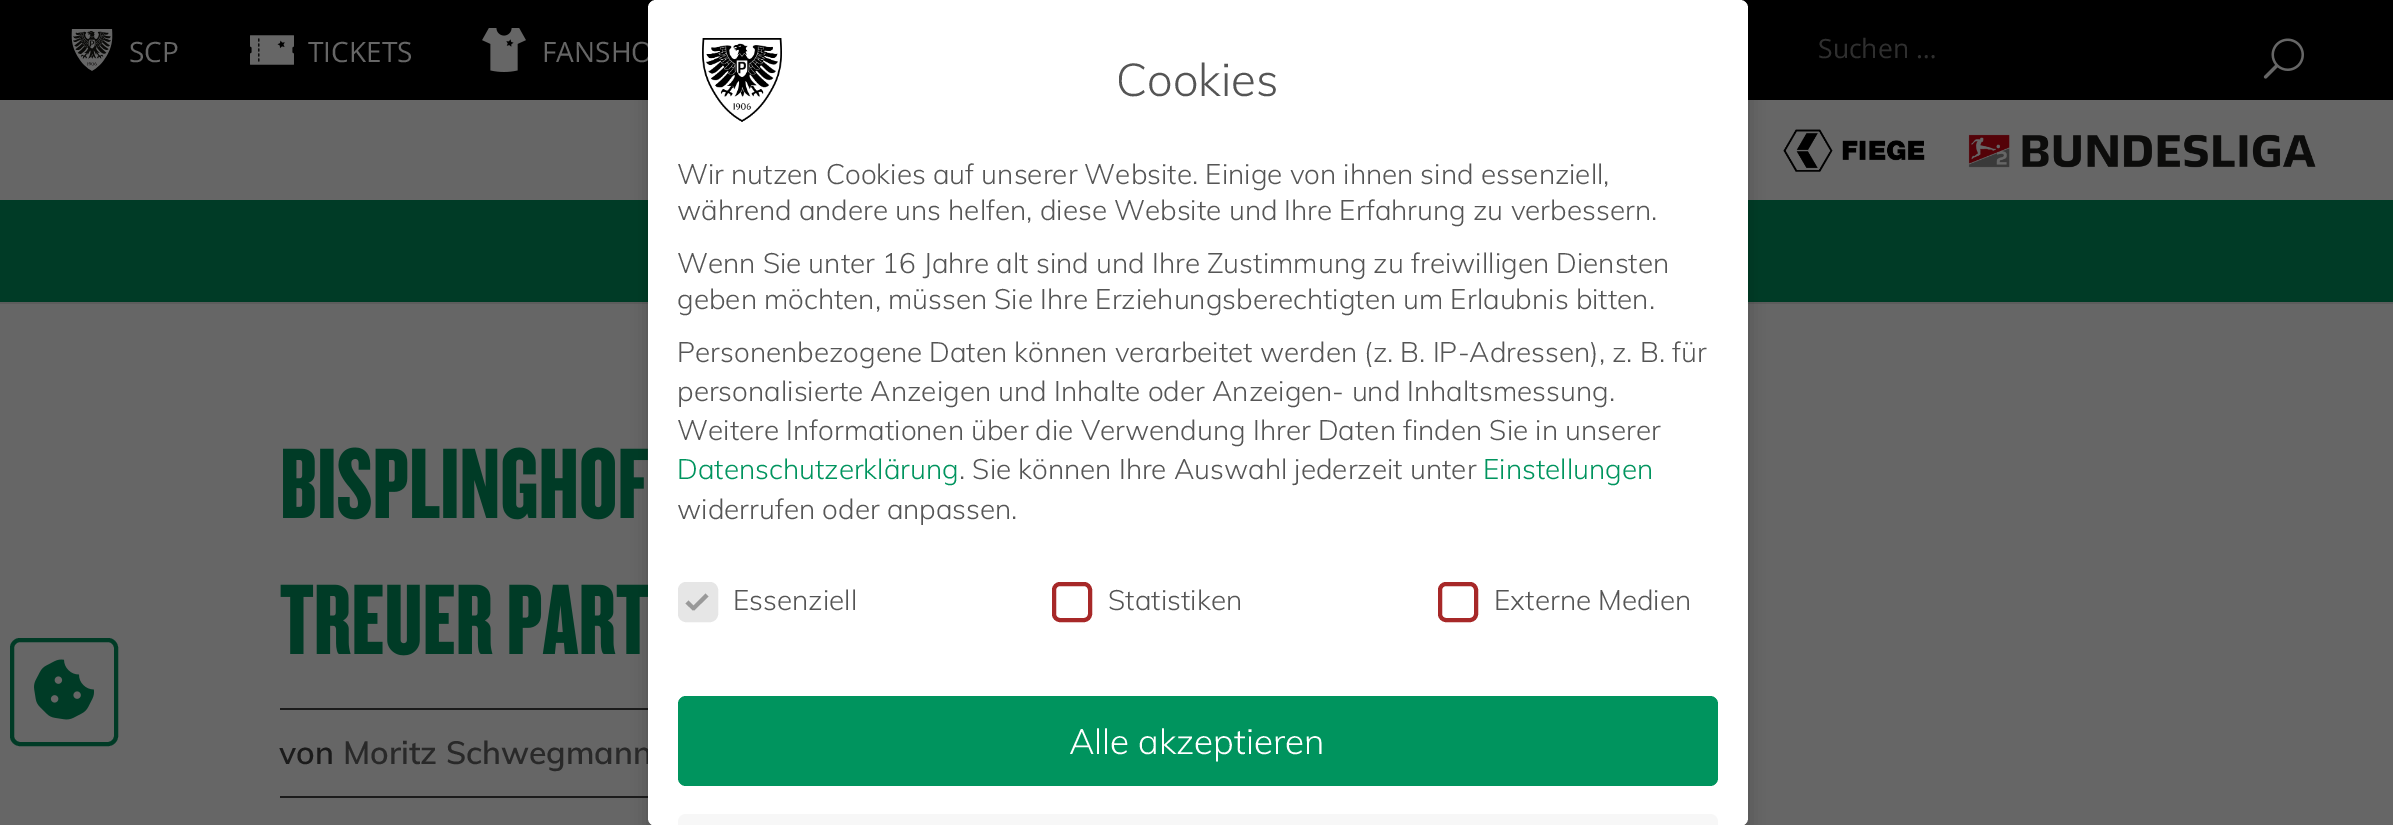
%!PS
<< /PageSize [2393 825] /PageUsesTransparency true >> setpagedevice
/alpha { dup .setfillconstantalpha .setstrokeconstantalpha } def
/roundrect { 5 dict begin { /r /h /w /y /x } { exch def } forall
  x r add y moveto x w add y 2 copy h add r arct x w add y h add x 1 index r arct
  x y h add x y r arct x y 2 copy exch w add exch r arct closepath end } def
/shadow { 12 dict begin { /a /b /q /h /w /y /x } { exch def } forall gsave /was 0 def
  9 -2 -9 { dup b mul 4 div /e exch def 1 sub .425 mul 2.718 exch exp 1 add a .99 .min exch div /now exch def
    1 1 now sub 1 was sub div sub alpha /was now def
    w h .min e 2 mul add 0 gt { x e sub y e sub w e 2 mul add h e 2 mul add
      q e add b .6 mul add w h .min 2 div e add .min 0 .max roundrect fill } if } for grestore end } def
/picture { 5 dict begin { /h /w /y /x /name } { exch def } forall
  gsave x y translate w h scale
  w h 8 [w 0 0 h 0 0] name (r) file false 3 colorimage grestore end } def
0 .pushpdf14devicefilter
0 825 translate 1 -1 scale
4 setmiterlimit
0.4 setgray
0 0 2393 825 rectfill
0.361 setgray
0 302 2393 2 rectfill
0 0.231 0.149 setrgbcolor
0 200 2393 102 rectfill
0 setgray
0 0 2393 100 rectfill
(img1.rgb) 71 29 42 42 picture
/OpenSans-Regular [28 0 0 -28 0 0] selectfont
0.4 setgray
129 62 moveto (SCP) show
(img2.rgb) 250 35 44 30 picture
308 62 moveto (TICKETS) show
(img3.rgb) 482 28 44 44 picture
542 62 moveto (FANSHO) show
/OpenSans-Regular [26.5 0 0 -26.5 0 0] selectfont
0.184 setgray
1818 58 moveto (Suchen …) show
(img4.rgb) 2263 38 41 41 picture
(img5.rgb) 1783 129 142 43 picture
(img6.rgb) 1968 134 348 34 picture
0 0.231 0.149 setrgbcolor
4 setlinewidth
12 640 104 104 8 roundrect stroke
(img7.rgb) 34 659 60 61 picture
(img8.rgb) 283 447 365 73 picture
(img9.rgb) 280 584 368 72 picture
0.106 setgray
280 708 368 2 rectfill
280 796 368 2 rectfill
/Muli-SemiBold [32 0 0 -32 0 0] selectfont
279 764 moveto (von) show
0.161 setgray
343 764 moveto (Moritz Schwegmann) show
0 setgray
648 8 1100 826 8 8 0.2 shadow
1 setgray
648 0 1100 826 8 roundrect fill
(img10.rgb) 702 38 80 84 picture
/Muli-Light [45.5 0 0 -45.5 0 0] selectfont
0.333 setgray
1116 96 moveto (Cookies) show
/Muli-Light [28 0 0 -28 0 0] selectfont
677 184 moveto (Wir nutzen Cookies auf unserer Website. Einige von ihnen sind essenziell,) show
677 220 moveto (während andere uns helfen, diese Website und Ihre Erfahrung zu verbessern.) show
677 273 moveto (Wenn Sie unter 16 Jahre alt sind und Ihre Zustimmung zu freiwilligen Diensten) show
677 309 moveto (geben möchten, müssen Sie Ihre Erziehungsberechtigten um Erlaubnis bitten.) show
677 362 moveto (Personenbezogene Daten können verarbeitet werden \(z. B. IP-Adressen\), z. B. für) show
677 401 moveto (personalisierte Anzeigen und Inhalte oder Anzeigen- und Inhaltsmessung.) show
677 440 moveto (Weitere Informationen über die Verwendung Ihrer Daten finden Sie in unserer) show
0 0.58 0.369 setrgbcolor
677 479 moveto (Datenschutzerklärung) show
0.333 setgray
959 479 moveto (. Sie können Ihre Auswahl jederzeit unter) show
0 0.58 0.369 setrgbcolor
1483 479 moveto (Einstellungen) show
0.333 setgray
677 519 moveto (widerrufen oder anpassen.) show
0.902 setgray
680 584 36 36 6 roundrect gsave fill grestore
stroke
0.6 setgray
newpath 705.5 593.5 moveto 708.5 596.5 lineto 694 610.5 lineto 691.5 607.5 lineto closepath fill
newpath 688.5 600.5 moveto 695.5 607.5 lineto 693 610.5 lineto 685.5 603.5 lineto closepath fill
0.333 setgray
733 610 moveto (Essenziell) show
0.655 0.157 0.157 setrgbcolor
1054 584 36 36 6 roundrect stroke
0.333 setgray
1108 610 moveto (Statistiken) show
0.655 0.157 0.157 setrgbcolor
1440 584 36 36 6 roundrect stroke
0.333 setgray
1494 610 moveto (Externe Medien) show
0 0.58 0.369 setrgbcolor
678 696 1040 90 8 roundrect fill
/Muli-Light [35 0 0 -35 0 0] selectfont
1 setgray
1069 754 moveto (Alle akzeptieren) show
0.969 setgray
newpath 686 814 moveto 1710 814 lineto 1714.5 814 1718 817.5 1718 822 curveto 1718 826 lineto 678 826 lineto 678 822 lineto 678 817.5 681.5 814 686 814 curveto closepath fill
.poppdf14devicefilter showpage
